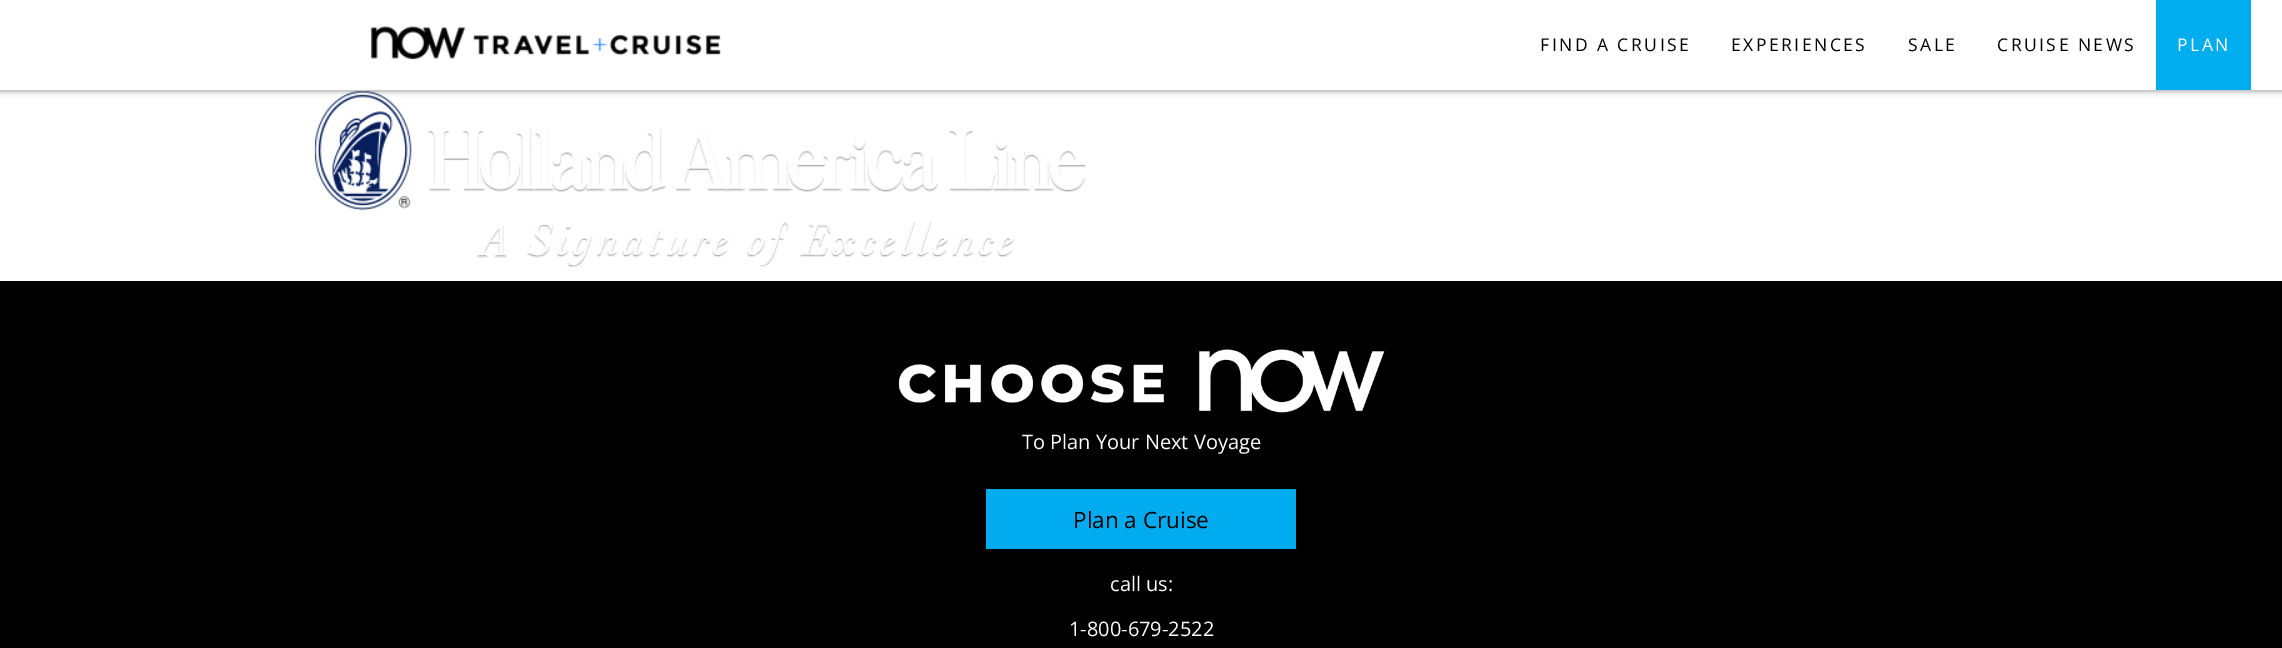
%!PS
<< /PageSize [2282 648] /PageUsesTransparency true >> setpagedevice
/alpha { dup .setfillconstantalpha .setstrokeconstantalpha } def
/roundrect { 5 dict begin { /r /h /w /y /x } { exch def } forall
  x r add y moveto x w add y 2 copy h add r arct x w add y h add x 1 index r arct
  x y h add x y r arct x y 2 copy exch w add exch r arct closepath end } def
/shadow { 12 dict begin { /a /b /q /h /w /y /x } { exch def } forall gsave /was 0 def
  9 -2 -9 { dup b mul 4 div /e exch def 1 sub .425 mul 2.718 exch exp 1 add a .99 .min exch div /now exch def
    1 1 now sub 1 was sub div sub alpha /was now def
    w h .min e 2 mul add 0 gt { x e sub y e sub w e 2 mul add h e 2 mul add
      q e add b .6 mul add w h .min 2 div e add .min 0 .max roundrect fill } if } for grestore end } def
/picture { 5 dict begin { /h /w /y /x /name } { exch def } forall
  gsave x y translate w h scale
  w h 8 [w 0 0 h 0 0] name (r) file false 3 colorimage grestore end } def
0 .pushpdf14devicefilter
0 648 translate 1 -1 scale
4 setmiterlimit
1 setgray
0 0 2282 648 rectfill
(img2.rgb) 314 91 772 177 picture
0.196 setgray
0 1 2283 90 0 3 0.5 shadow
1 setgray
0 0 2282 90 rectfill
(img1.rgb) 370 26 351 34 picture
/OpenSans-Regular [17.5 0 0 -17.5 0 0] selectfont
0 setgray
1540 51 moveto 2.5 0 (FIND A CRUISE) ashow
1731 51 moveto 2.5 0 (EXPERIENCES) ashow
1908 51 moveto 2.5 0 (SALE) ashow
1997 51 moveto 2.5 0 (CRUISE NEWS) ashow
0 0.678 0.937 setrgbcolor
2156 0 95 90 rectfill
1 setgray
2177 51 moveto 2.5 0 (PLAN) ashow
0 setgray
0 281 2282 367 rectfill
(img3.rgb) 898 349 487 64 picture
/OpenSans-Regular [20 0 0 -20 0 0] selectfont
1 setgray
1022 449 moveto (To Plan Your Next Voyage) show
0 0.675 0.937 setrgbcolor
986 489 310 60 rectfill
/OpenSans-Regular [22.5 0 0 -22.5 0 0] selectfont
0 setgray
1073 528 moveto (Plan a Cruise) show
/OpenSans-Regular [20 0 0 -20 0 0] selectfont
1 setgray
1110 591 moveto (call us:) show
1069 636 moveto (1-800-679-2522) show
.poppdf14devicefilter showpage
